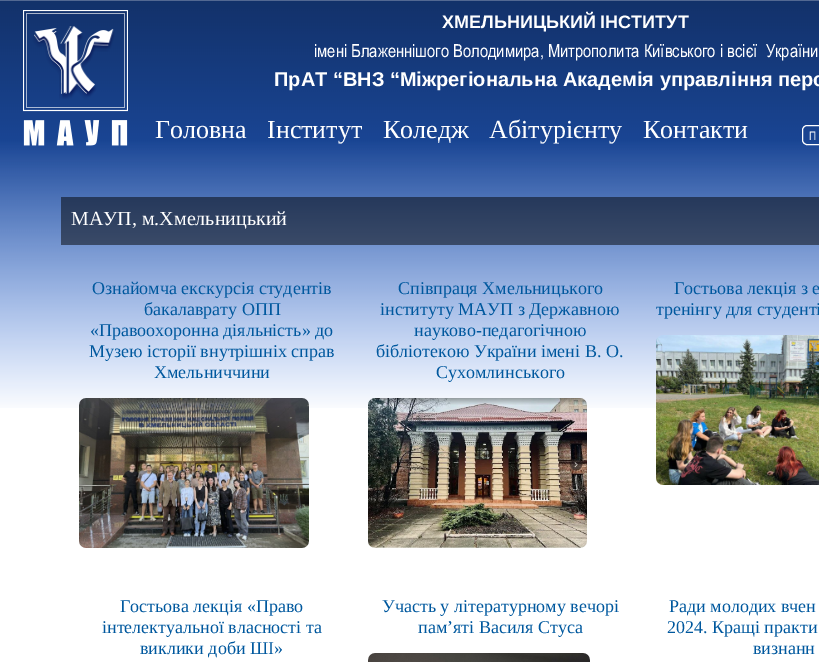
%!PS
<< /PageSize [819 662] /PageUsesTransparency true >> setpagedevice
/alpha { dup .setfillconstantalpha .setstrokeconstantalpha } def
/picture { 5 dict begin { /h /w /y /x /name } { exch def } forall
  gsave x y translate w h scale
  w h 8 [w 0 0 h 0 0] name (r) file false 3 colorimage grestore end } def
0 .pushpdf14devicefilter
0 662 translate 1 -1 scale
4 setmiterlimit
1 setgray
0 0 819 662 rectfill
(img1.rgb) 0 0 819 408 picture
(img2.rgb) 23 10 105 136 picture
/LiberationSans-Bold [18 0 0 -18 0 0] selectfont
442 28 moveto (ХМЕЛЬНИЦЬКИЙ ІНСТИТУТ) show
/LiberationSans-Bold [20 0 0 -20 0 0] selectfont
274 86 moveto (ПрАТ “ВНЗ “Міжрегіональна Академія управління перс) show
/Arial-Regular [18 0 0 -18 0 0] selectfont
314 57 moveto (імені Блаженнішого Володимира, Митрополита Київського і всієї  України) show
/LiberationSerif-Regular [26 0 0 -26 0 0] selectfont
155 138 moveto (Головна) show
267 138 moveto (Інститут) show
383 138 moveto (Коледж) show
489 138 moveto (Абітурієнту) show
643 138 moveto (Контакти) show
newpath 807 144.5 moveto 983 144.5 lineto 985.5 144.5 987.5 142.5 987.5 140 curveto 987.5 130 lineto 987.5 127.5 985.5 125.5 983 125.5 curveto 807 125.5 lineto 804.5 125.5 802.5 127.5 802.5 130 curveto 802.5 140 lineto 802.5 142.5 804.5 144.5 807 144.5 curveto closepath stroke
/Arial-Regular [12 0 0 -12 0 0] selectfont
809 140 moveto (П) show
0.5 alpha
0 setgray
61 197 758 48 rectfill
/LiberationSerif-Regular [20 0 0 -20 0 0] selectfont
1 alpha
1 setgray
71 225 moveto (МАУП, м.Хмельницький) show
/LiberationSerif-Regular [18 0 0 -18 0 0] selectfont
0 0.345 0.62 setrgbcolor
92 294 moveto (Ознайомча екскурсія студентів) show
144 315 moveto (бакалаврату ОПП) show
90 336 moveto («Правоохоронна діяльність» до) show
89 357 moveto (Музею історії внутрішніх справ) show
154 378 moveto (Хмельниччини) show
(img3.rgb) 79 398 230 150 picture
398 294 moveto (Співпраця Хмельницького) show
380 315 moveto (інституту МАУП з Державною) show
414 336 moveto (науково-педагогічною) show
376 357 moveto (бібліотекою України імені В. О.) show
436 378 moveto (Сухомлинського) show
(img4.rgb) 368 398 219 150 picture
674 294 moveto (Гостьова лекція з е) show
656 315 moveto (тренінгу для студенті) show
(img5.rgb) 656 335 163 150 picture
120 612 moveto (Гостьова лекція «Право) show
102 633 moveto (інтелектуальної власності та) show
140 654 moveto (виклики доби ШІ») show
382 612 moveto (Участь у літературному вечорі) show
418 633 moveto (пам’яті Василя Стуса) show
(img6.rgb) 368 653 222 9 picture
669 612 moveto (Ради молодих вчен) show
667 633 moveto (2024. Кращі практи) show
753 654 moveto (визнанн) show
.poppdf14devicefilter showpage
